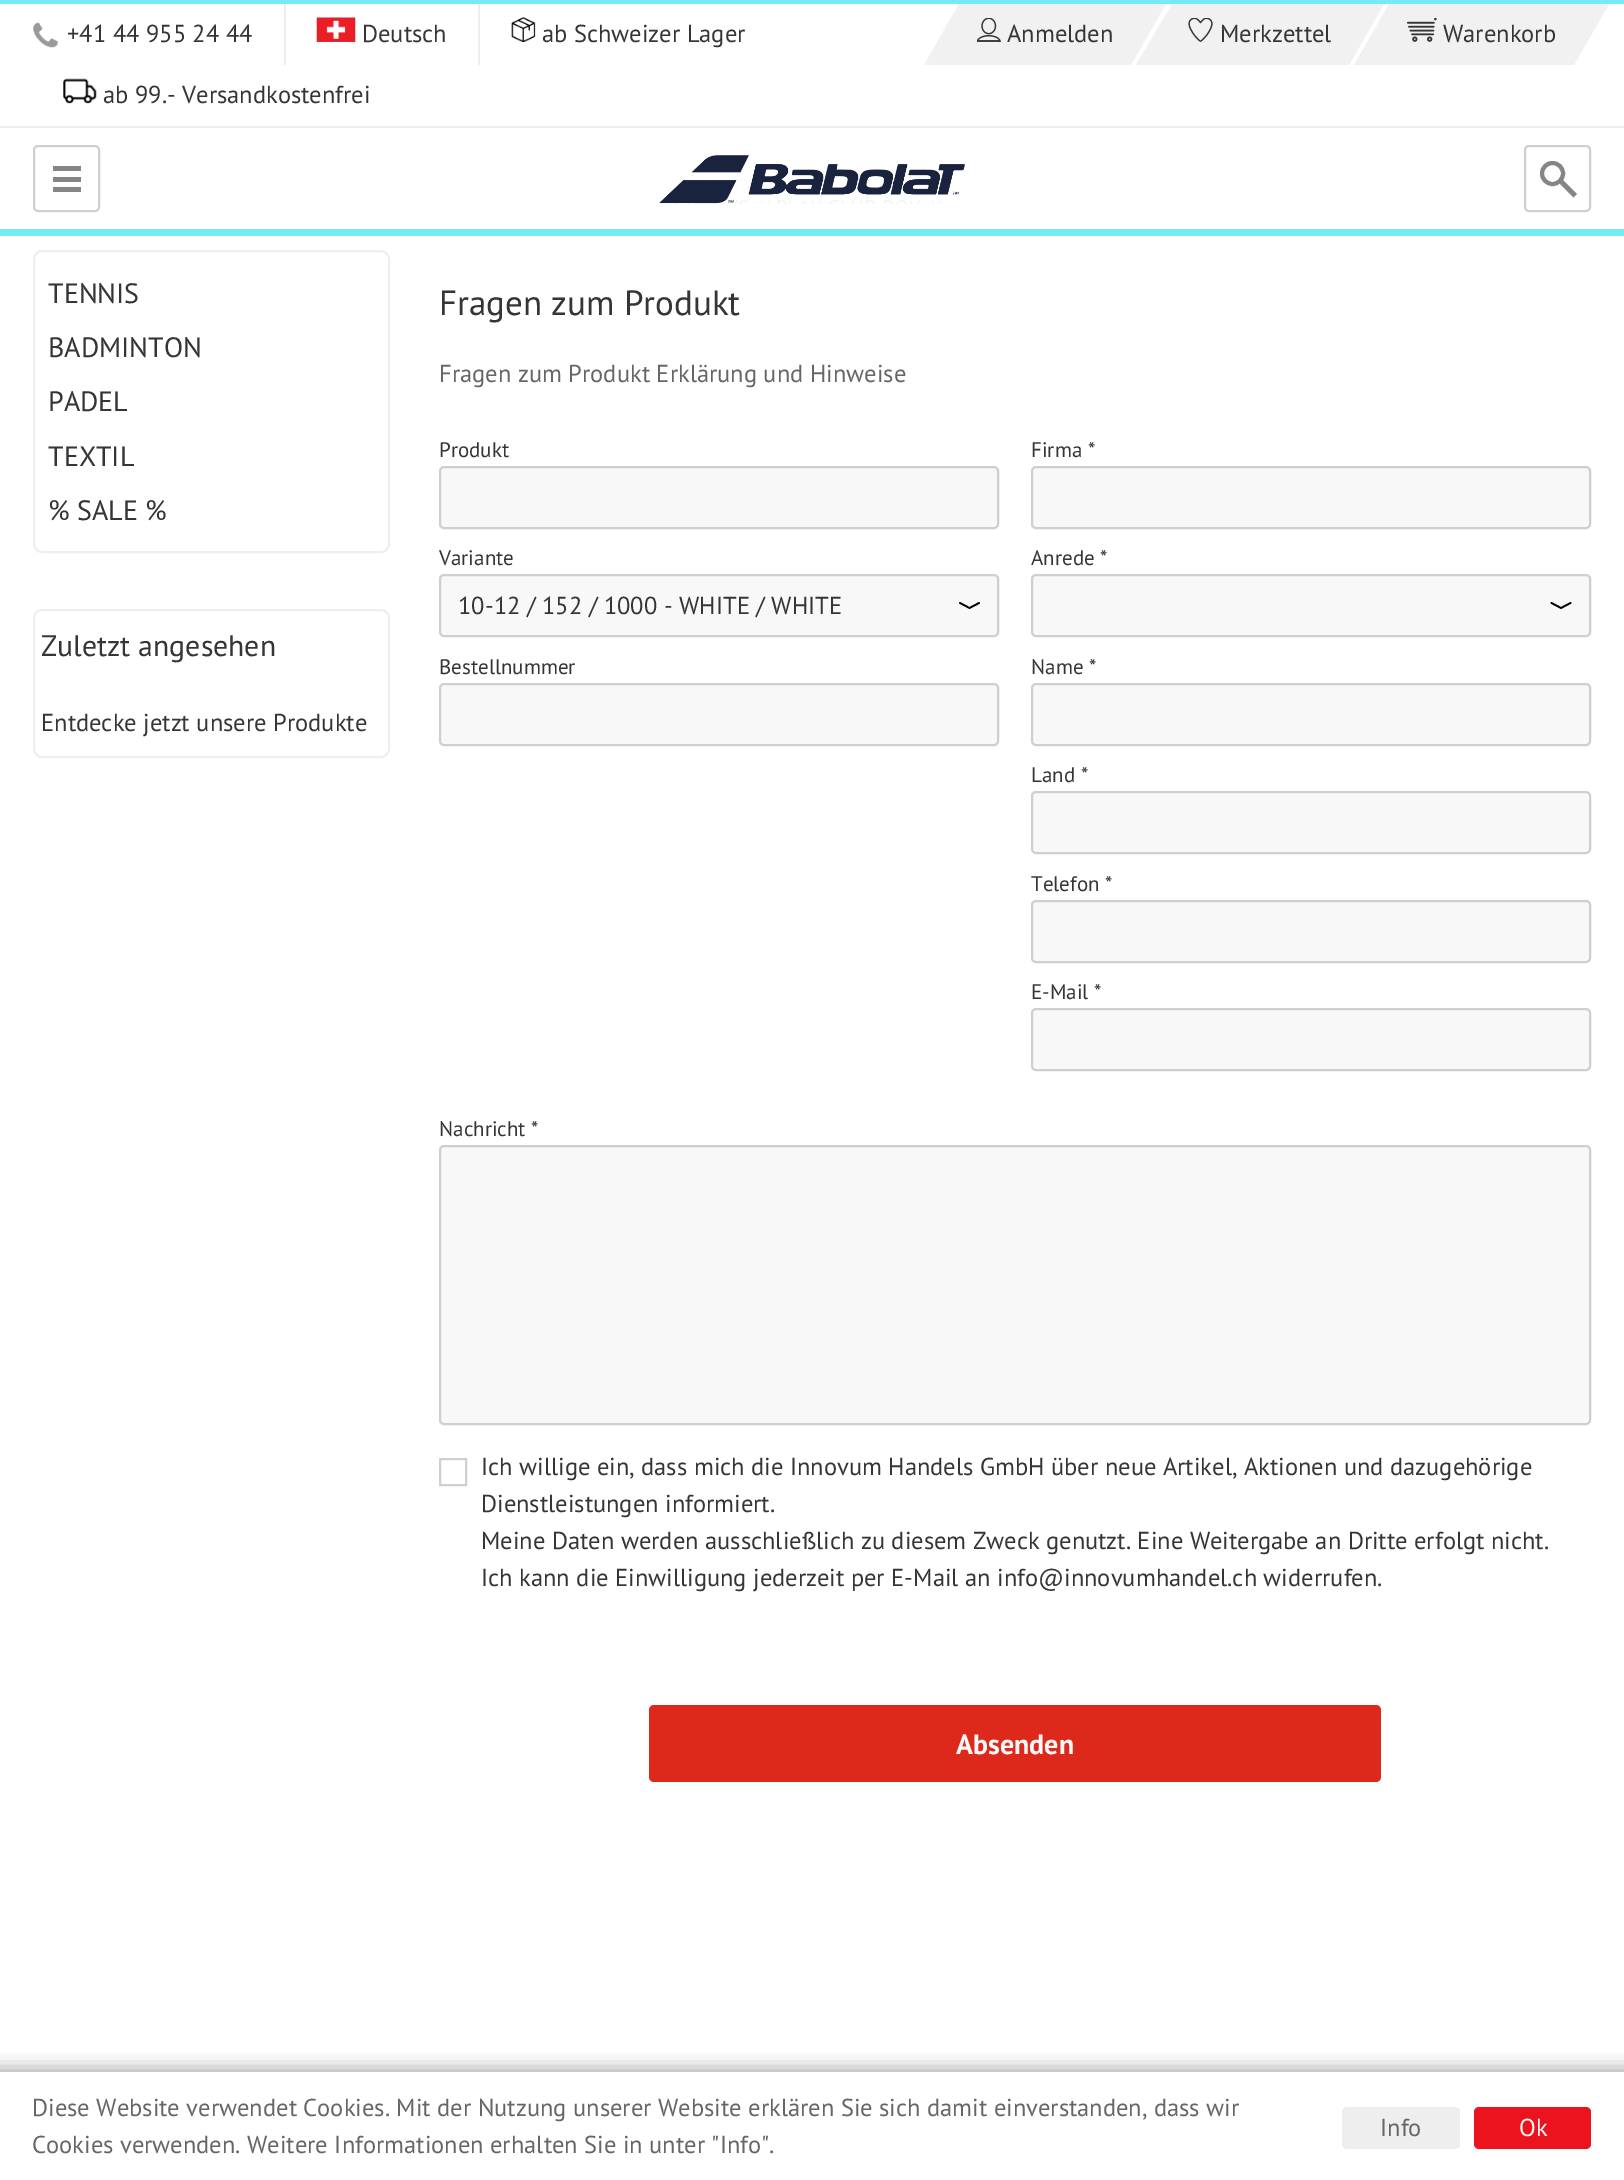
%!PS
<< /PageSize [1624 2180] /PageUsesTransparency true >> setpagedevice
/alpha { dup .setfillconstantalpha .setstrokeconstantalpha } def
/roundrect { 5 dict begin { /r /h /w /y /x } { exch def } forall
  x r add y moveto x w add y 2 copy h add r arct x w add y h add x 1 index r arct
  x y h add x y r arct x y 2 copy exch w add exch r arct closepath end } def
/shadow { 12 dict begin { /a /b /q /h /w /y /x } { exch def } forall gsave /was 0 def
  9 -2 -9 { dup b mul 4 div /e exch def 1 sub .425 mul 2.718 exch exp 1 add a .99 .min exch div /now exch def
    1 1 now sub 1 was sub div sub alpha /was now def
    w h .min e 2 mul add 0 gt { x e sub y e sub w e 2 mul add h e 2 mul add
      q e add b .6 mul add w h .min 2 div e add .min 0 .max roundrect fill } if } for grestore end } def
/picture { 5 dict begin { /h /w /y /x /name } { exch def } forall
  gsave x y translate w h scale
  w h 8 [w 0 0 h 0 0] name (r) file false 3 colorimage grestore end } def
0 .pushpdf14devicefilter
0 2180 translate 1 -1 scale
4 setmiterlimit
1 setgray
0 0 1624 2180 rectfill
0.455 0.925 0.969 setrgbcolor
0 0 1624 4 rectfill
0.933 setgray
0 126 1624 2 rectfill
(img1.rgb) 33 22 25 26 picture
/PTSans-Regular [24.5 0 0 -24.5 0 0] selectfont
0.208 setgray
67 42 moveto (+41 44 955 24 44) show
0.933 setgray
478 4 2 61 rectfill
284 4 2 61 rectfill
(img2.rgb) 316 17 40 25 picture
0.208 setgray
362 42 moveto (Deutsch) show
(img3.rgb) 511 17 25 25 picture
542 42 moveto (ab Schweizer Lager) show
0.945 setgray
newpath 1389 4 moveto 1609 4 lineto 1574 65 lineto 1354 65 lineto closepath fill
newpath 1172 4 moveto 1384 4 lineto 1349 65 lineto 1136 65 lineto closepath fill
newpath 959 4 moveto 1166 4 lineto 1131 65 lineto 924 65 lineto closepath fill
(img4.rgb) 977 18 24 24 picture
0.208 setgray
1007 42 moveto (Anmelden) show
(img5.rgb) 1188 18 25 24 picture
1220 42 moveto (Merkzettel) show
(img6.rgb) 1407 18 30 24 picture
1443 42 moveto (Warenkorb) show
(img7.rgb) 63 78 34 26 picture
103 103 moveto (ab 99.- Versandkostenfrei) show
0.455 0.925 0.969 setrgbcolor
0 229 1624 7 rectfill
0.812 setgray
2 setlinewidth
34 146 65 65 4 roundrect stroke
0.522 setgray
53 166 28 5 rectfill
53 177 28 5 rectfill
53 187 28 5 rectfill
(img8.rgb) 659 155 306 49 picture
0.812 setgray
1525 146 65 65 4 roundrect stroke
0.522 setgray
4 setlinewidth
newpath 1552.5 173.5 10.5 0 360 arc closepath stroke
newpath 1558.5 182.5 moveto 1562 179 lineto 1577 194 lineto 1573.5 197.5 lineto closepath fill
0.933 setgray
2 setlinewidth
34 251 355 301 8 roundrect stroke
/PTSans-Regular [28 0 0 -28 0 0] selectfont
0.208 setgray
48 303 moveto (TENNIS) show
48 357 moveto (BADMINTON) show
48 411 moveto (PADEL) show
48 466 moveto (TEXTIL) show
48 520 moveto (% SALE %) show
0.933 setgray
34 610 355 147 8 roundrect stroke
/PTSans-Regular [29.75 0 0 -29.75 0 0] selectfont
0.208 setgray
41 656 moveto (Zuletzt angesehen) show
/PTSans-Regular [24.5 0 0 -24.5 0 0] selectfont
41 731 moveto (Entdecke jetzt unsere Produkte) show
/PTSans-Regular [35 0 0 -35 0 0] selectfont
439 315 moveto (Fragen zum Produkt) show
/PTSans-Regular [24.5 0 0 -24.5 0 0] selectfont
0.4 setgray
439 382 moveto (Fragen zum Produkt Erklärung und Hinweise) show
/PTSans-Regular [21 0 0 -21 0 0] selectfont
0.208 setgray
439 457 moveto (Produkt) show
0.973 setgray
440 467 558 61 4 roundrect gsave fill grestore
0.812 setgray
stroke
0.208 setgray
439 565 moveto (Variante) show
0.973 setgray
439 574 560 63 5 roundrect fill
0 setgray
1.7 setlinewidth
1 setlinecap
1 setlinejoin
newpath 960 603 moveto 969.5 608 lineto 979 603 moveto 969.5 608 lineto stroke
0.812 setgray
2 setlinewidth
0 setlinecap
0 setlinejoin
440 575 558 61 4 roundrect stroke
/PTSans-Regular [24.5 0 0 -24.5 0 0] selectfont
0.208 setgray
458 614 moveto (10-12 / 152 / 1000 - WHITE / WHITE) show
/PTSans-Regular [21 0 0 -21 0 0] selectfont
439 674 moveto (Bestellnummer) show
0.973 setgray
440 684 558 61 4 roundrect gsave fill grestore
0.812 setgray
stroke
0.208 setgray
1031 457 moveto (Firma *) show
0.973 setgray
1032 467 558 61 4 roundrect gsave fill grestore
0.812 setgray
stroke
0.208 setgray
1031 565 moveto (Anrede *) show
0.973 setgray
1031 574 560 63 5 roundrect fill
0 setgray
1.7 setlinewidth
1 setlinecap
1 setlinejoin
newpath 1551.5 603 moveto 1561 608 lineto 1570.5 603 moveto 1561 608 lineto stroke
0.812 setgray
2 setlinewidth
0 setlinecap
0 setlinejoin
1032 575 558 61 4 roundrect stroke
0.208 setgray
1031 674 moveto (Name *) show
0.973 setgray
1032 684 558 61 4 roundrect gsave fill grestore
0.812 setgray
stroke
0.208 setgray
1031 782 moveto (Land *) show
0.973 setgray
1032 792 558 61 4 roundrect gsave fill grestore
0.812 setgray
stroke
0.208 setgray
1031 891 moveto (Telefon *) show
0.973 setgray
1032 901 558 61 4 roundrect gsave fill grestore
0.812 setgray
stroke
0.208 setgray
1031 999 moveto (E-Mail *) show
0.973 setgray
1032 1009 558 61 4 roundrect gsave fill grestore
0.812 setgray
stroke
0.208 setgray
439 1136 moveto (Nachricht *) show
0.973 setgray
440 1146 1150 278 4 roundrect gsave fill grestore
0.812 setgray
stroke
440 1459 26 26 rectstroke
/PTSans-Regular [24.5 0 0 -24.5 0 0] selectfont
0.208 setgray
481 1475 moveto (Ich willige ein, dass mich die Innovum Handels GmbH über neue Artikel, Aktionen und dazugehörige) show
481 1512 moveto (Dienstleistungen informiert.) show
481 1549 moveto (Meine Daten werden ausschließlich zu diesem Zweck genutzt. Eine Weitergabe an Dritte erfolgt nicht.) show
481 1586 moveto (Ich kann die Einwilligung jederzeit per E-Mail an info@innovumhandel.ch widerrufen.) show
0.867 0.161 0.106 setrgbcolor
649 1705 732 77 5 roundrect fill
/PTSans-Bold [28 0 0 -28 0 0] selectfont
0.973 setgray
956 1754 moveto (Absenden) show
gsave
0 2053 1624 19 rectclip
0 setgray
-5 2067 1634 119 0 9 0.3 shadow
grestore
/PTSans-Regular [24.5 0 0 -24.5 0 0] selectfont
0.4 setgray
32 2116 moveto (Diese Website verwendet Cookies. Mit der Nutzung unserer Website erklären Sie sich damit einverstanden, dass wir) show
32 2153 moveto (Cookies verwenden. Weitere Informationen erhalten Sie in unter "Info".) show
0.933 setgray
1342 2107 118 42 5 roundrect fill
0.4 setgray
1380 2136 moveto (Info) show
0.918 0.075 0.118 setrgbcolor
1474 2107 117 42 5 roundrect fill
0.973 setgray
1519 2136 moveto (Ok) show
.poppdf14devicefilter showpage
